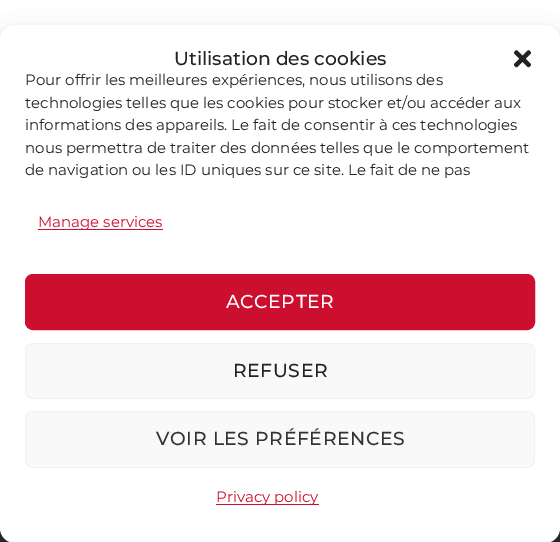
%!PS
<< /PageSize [560 542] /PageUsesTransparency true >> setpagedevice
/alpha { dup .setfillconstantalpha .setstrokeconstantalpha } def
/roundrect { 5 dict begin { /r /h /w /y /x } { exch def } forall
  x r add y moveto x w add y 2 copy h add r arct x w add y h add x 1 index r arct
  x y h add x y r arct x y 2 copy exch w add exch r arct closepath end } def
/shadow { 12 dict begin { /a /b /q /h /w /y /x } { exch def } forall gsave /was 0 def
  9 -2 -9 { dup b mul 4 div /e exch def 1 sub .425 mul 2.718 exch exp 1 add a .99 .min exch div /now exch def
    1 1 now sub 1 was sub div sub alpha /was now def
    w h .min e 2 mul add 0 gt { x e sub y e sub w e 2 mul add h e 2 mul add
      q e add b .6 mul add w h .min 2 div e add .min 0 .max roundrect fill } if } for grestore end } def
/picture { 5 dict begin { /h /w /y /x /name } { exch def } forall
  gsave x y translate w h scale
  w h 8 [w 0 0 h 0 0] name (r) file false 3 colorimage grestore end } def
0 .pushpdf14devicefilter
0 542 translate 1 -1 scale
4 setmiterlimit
1 setgray
0 0 560 542 rectfill
0.18 setgray
0 528 560 14 rectfill
0 setgray
0 33 560 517 15 4 0.23 shadow
0 38 560 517 15 12.5 0.19 shadow
1 setgray
0 25 560 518 15 roundrect fill
/Montserrat-Medium [18.75 0 0 -18.75 0 0] selectfont
0.133 setgray
174 65 moveto (Utilisation des cookies) show
(img1.rgb) 513 50 19 18 picture
/Montserrat-Thin [15 0 0 -15 0 0] selectfont
25 85 moveto (Pour offrir les meilleures expériences, nous utilisons des) show
25 108 moveto (technologies telles que les cookies pour stocker et/ou accéder aux) show
25 130 moveto (informations des appareils. Le fait de consentir à ces technologies) show
25 153 moveto (nous permettra de traiter des données telles que le comportement) show
25 175 moveto (de navigation ou les ID uniques sur ce site. Le fait de ne pas) show
0.8 0.059 0.18 setrgbcolor
38 229 125 1 rectfill
38 227 moveto (Manage services) show
25.5 274.5 509 55 7.5 roundrect gsave fill grestore
stroke
/Montserrat-Medium [18.75 0 0 -18.75 0 0] selectfont
1 setgray
226 308 moveto 0.6 0 (ACCEPTER) ashow
0.976 setgray
25.5 343.5 509 55 7.5 roundrect gsave fill grestore
0.949 setgray
stroke
0.133 setgray
233 377 moveto 0.6 0 (REFUSER) ashow
0.976 setgray
25.5 411.5 509 56 7.5 roundrect gsave fill grestore
0.949 setgray
stroke
0.2 setgray
156 445 moveto 0.6 0 (VOIR LES PRÉFÉRENCES) ashow
0.8 0.059 0.18 setrgbcolor
216 504 103 1 rectfill
/Montserrat-Thin [15 0 0 -15 0 0] selectfont
216 502 moveto (Privacy policy) show
.poppdf14devicefilter showpage
